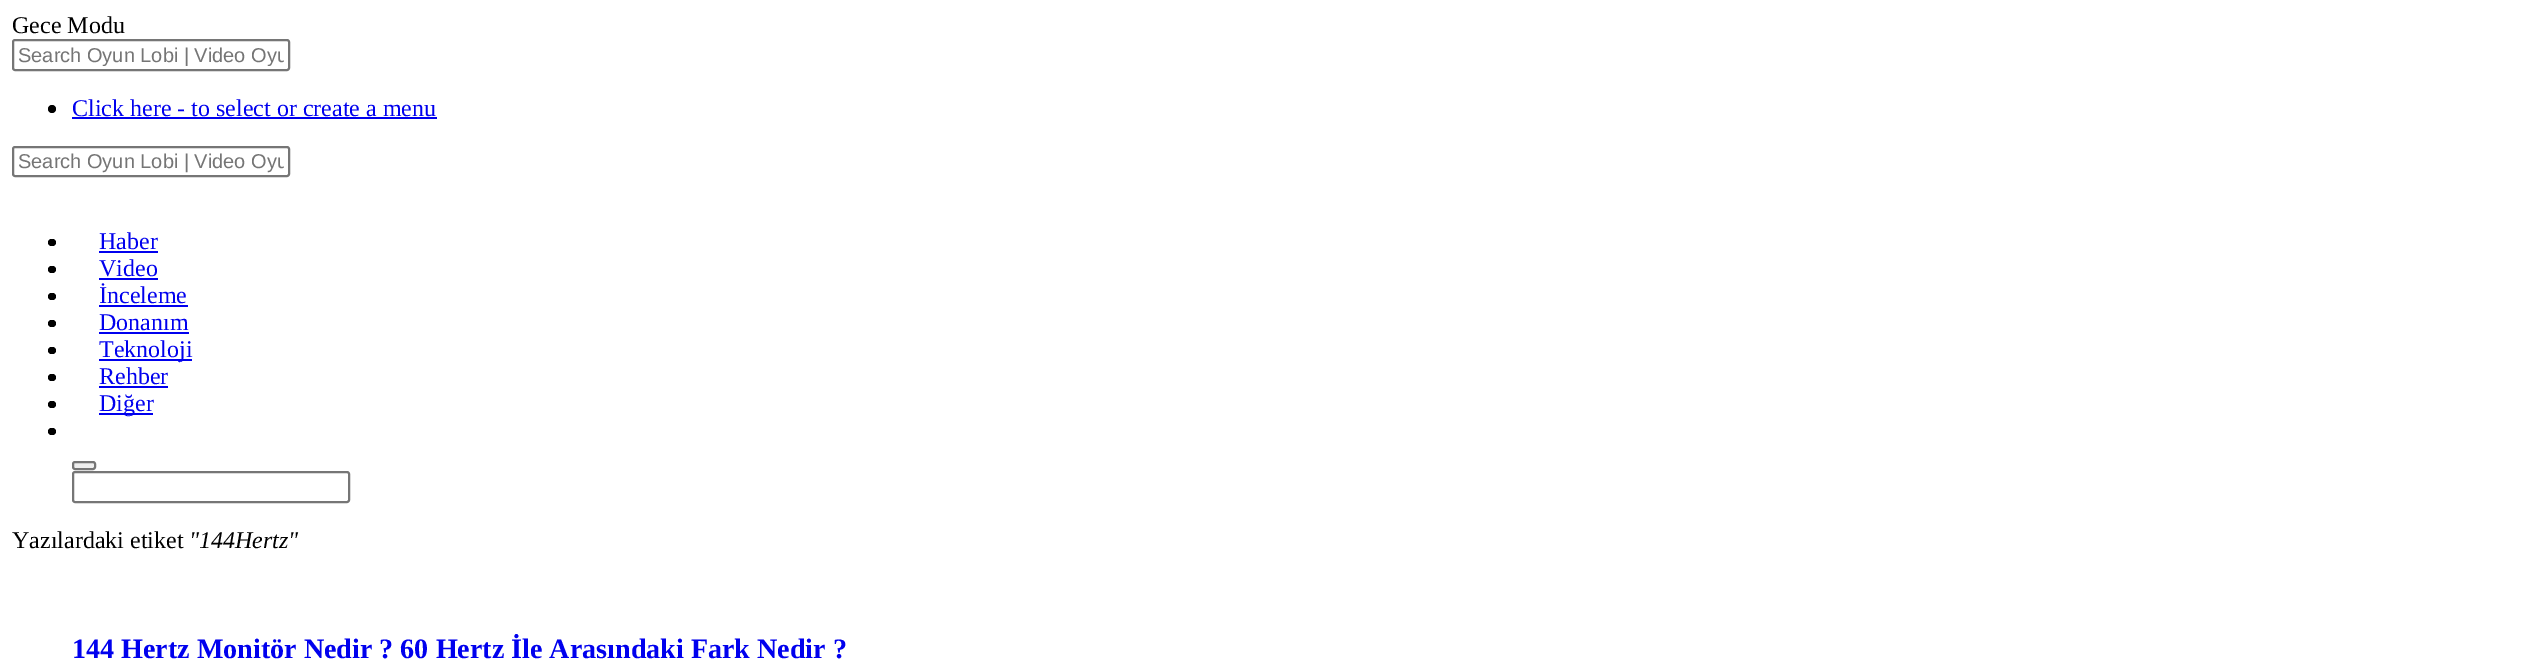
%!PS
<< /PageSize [2529 660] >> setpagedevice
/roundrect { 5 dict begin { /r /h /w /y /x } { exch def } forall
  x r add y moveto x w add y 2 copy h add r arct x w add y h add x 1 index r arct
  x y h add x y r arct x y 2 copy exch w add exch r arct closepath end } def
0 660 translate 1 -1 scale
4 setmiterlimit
1 setgray
0 0 2529 660 rectfill
/LiberationSerif-Regular [24 0 0 -24 0 0] selectfont
0 setgray
12 33 moveto (Gece Modu) show
0.463 setgray
2 setlinewidth
13 40 276 30 2 roundrect stroke
gsave
18 44 266 22 rectclip
/LiberationSans-Regular [20 0 0 -20 0 0] selectfont
0.459 setgray
18 62 moveto (Search Oyun Lobi | Video Oyu) show
grestore
0 setgray
newpath 52 109 4 0 360 arc closepath fill
0 0 0.933 setrgbcolor
72 116 moveto (Click here - to select or create a menu) show
72 117 365 2 rectfill
0.463 setgray
13 147 276 29 2 roundrect stroke
gsave
18 150 266 23 rectclip
/LiberationSans-Regular [20 0 0 -20 0 0] selectfont
0.459 setgray
18 168 moveto (Search Oyun Lobi | Video Oyu) show
grestore
0 setgray
48 239 8 7 3.5 roundrect fill
0 0 0.933 setrgbcolor
99 249 moveto (Haber) show
99 251 59 2 rectfill
0 setgray
48 266 8 7 3.5 roundrect fill
0 0 0.933 setrgbcolor
99 276 moveto (Video) show
99 278 59 2 rectfill
0 setgray
48 293 8 7 3.5 roundrect fill
0 0 0.933 setrgbcolor
99 303 moveto (İnceleme) show
99 305 89 2 rectfill
0 setgray
48 320 8 7 3.5 roundrect fill
0 0 0.933 setrgbcolor
99 330 moveto (Donanım) show
99 332 90 2 rectfill
0 setgray
48 347 8 7 3.5 roundrect fill
0 0 0.933 setrgbcolor
99 359 93 2 rectfill
99 357 moveto (Teknoloji) show
0 setgray
48 374 8 7 3.5 roundrect fill
0 0 0.933 setrgbcolor
99 384 moveto (Rehber) show
99 386 69 2 rectfill
0 setgray
48 401 8 7 3.5 roundrect fill
0 0 0.933 setrgbcolor
99 413 54 2 rectfill
99 411 moveto (Diğer) show
0 setgray
48 428 8 7 3.5 roundrect fill
0.937 setgray
73 462 22 7 2 roundrect gsave fill grestore
0.463 setgray
stroke
73 472 276 30 2 roundrect stroke
0 setgray
12 548 moveto (Yazılardaki etiket) show
/LiberationSerif-Italic [24 0 0 -24 0 0] selectfont
189 548 moveto ("144Hertz") show
/LiberationSerif-Bold [28.1 0 0 -28.1 0 0] selectfont
0 0 0.933 setrgbcolor
72 658 moveto (144 Hertz Monitör Nedir ? 60 Hertz İle Arasındaki Fark Nedir ?) show
showpage
